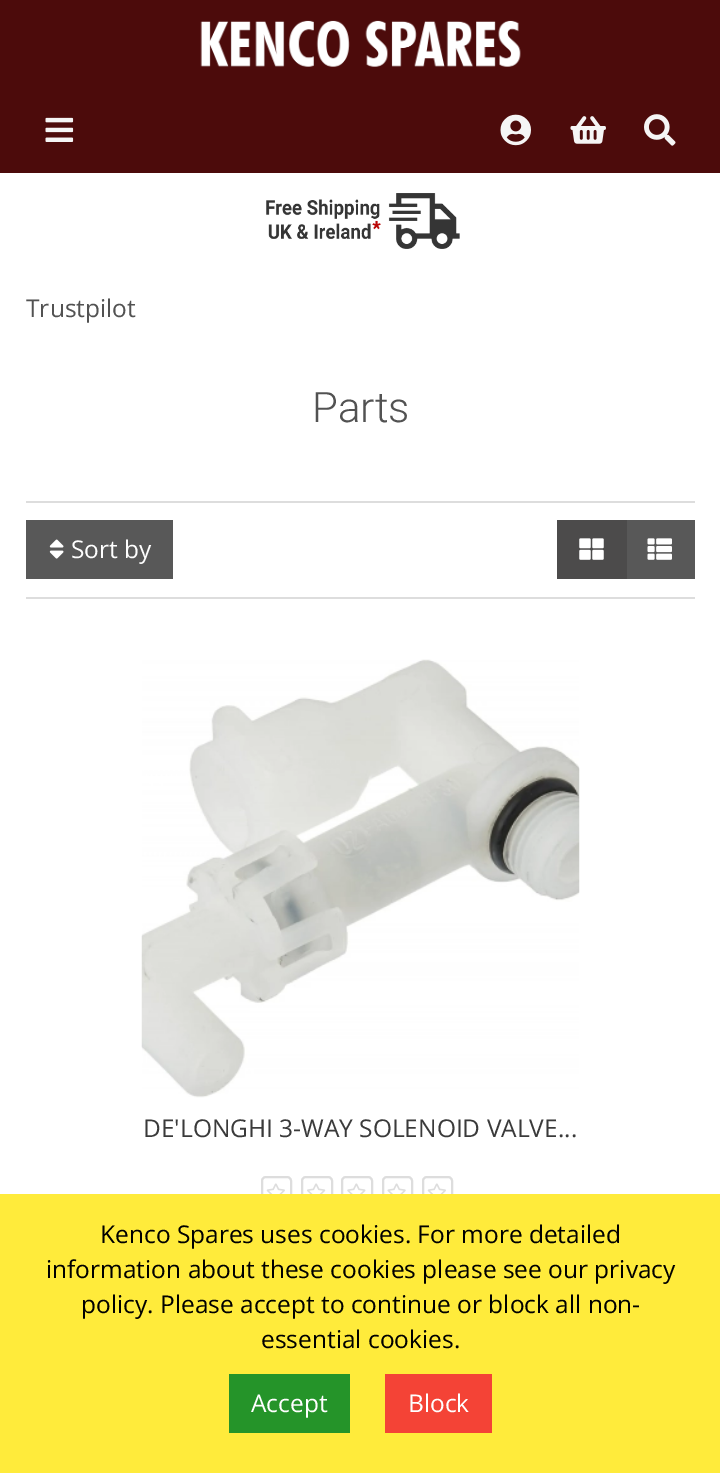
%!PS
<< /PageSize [720 1473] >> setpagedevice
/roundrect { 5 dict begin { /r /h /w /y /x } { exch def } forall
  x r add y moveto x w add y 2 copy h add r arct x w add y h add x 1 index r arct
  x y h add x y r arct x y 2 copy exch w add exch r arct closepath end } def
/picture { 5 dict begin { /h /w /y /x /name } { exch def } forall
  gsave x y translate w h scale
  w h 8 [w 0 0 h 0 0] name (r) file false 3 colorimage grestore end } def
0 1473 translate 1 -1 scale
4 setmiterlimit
1 setgray
0 0 720 1473 rectfill
0.298 0.043 0.043 setrgbcolor
0 0 720 173 rectfill
(img1.rgb) 200 20 321 47 picture
(img2.rgb) 45 117 29 25 picture
(img3.rgb) 500 114 31 32 picture
(img4.rgb) 570 116 36 28 picture
(img5.rgb) 644 114 32 32 picture
(img6.rgb) 266 193 194 56 picture
/OpenSans-Regular [24.5 0 0 -24.5 0 0] selectfont
0.322 setgray
26 317 moveto (Trustpilot) show
/Roboto-Light [42 0 0 -42 0 0] selectfont
312 422 moveto (Parts) show
0.867 setgray
26 501 669 2 rectfill
26 597 669 2 rectfill
0.345 setgray
26 520 147 59 rectfill
(img7.rgb) 49 539 15 20 picture
/OpenSans-Regular [24.5 0 0 -24.5 0 0] selectfont
1 setgray
71 558 moveto (Sort by) show
0.298 0.294 0.294 setrgbcolor
557 520 70 59 rectfill
(img8.rgb) 579 538 25 22 picture
0.345 setgray
627 520 68 59 rectfill
(img9.rgb) 647 538 25 22 picture
(img10.rgb) 141 659 439 439 picture
0.227 setgray
143 1137 moveto (DE'LONGHI 3-WAY SOLENOID VALVE...) show
0.867 setgray
2 setlinewidth
262 1177 29 30 4 roundrect stroke
(img11.rgb) 266 1183 19 11 picture
302 1177 30 30 4 roundrect stroke
(img12.rgb) 307 1183 19 11 picture
342 1177 30 30 4 roundrect stroke
(img13.rgb) 347 1183 19 11 picture
383 1177 29 30 4 roundrect stroke
(img14.rgb) 387 1183 19 11 picture
423 1177 29 30 4 roundrect stroke
(img11.rgb) 427 1183 19 11 picture
1 0.922 0.231 setrgbcolor
0 1194 720 279 rectfill
0 setgray
100 1243 moveto (Kenco Spares uses cookies. For more detailed) show
46 1278 moveto (information about these cookies please see our privacy) show
81 1313 moveto (policy. Please accept to continue or block all non-) show
261 1348 moveto (essential cookies.) show
0.145 0.58 0.161 setrgbcolor
229 1374 121 59 rectfill
1 setgray
251 1412 moveto (Accept) show
0.957 0.263 0.212 setrgbcolor
385 1374 107 59 rectfill
1 setgray
408 1412 moveto (Block) show
showpage
